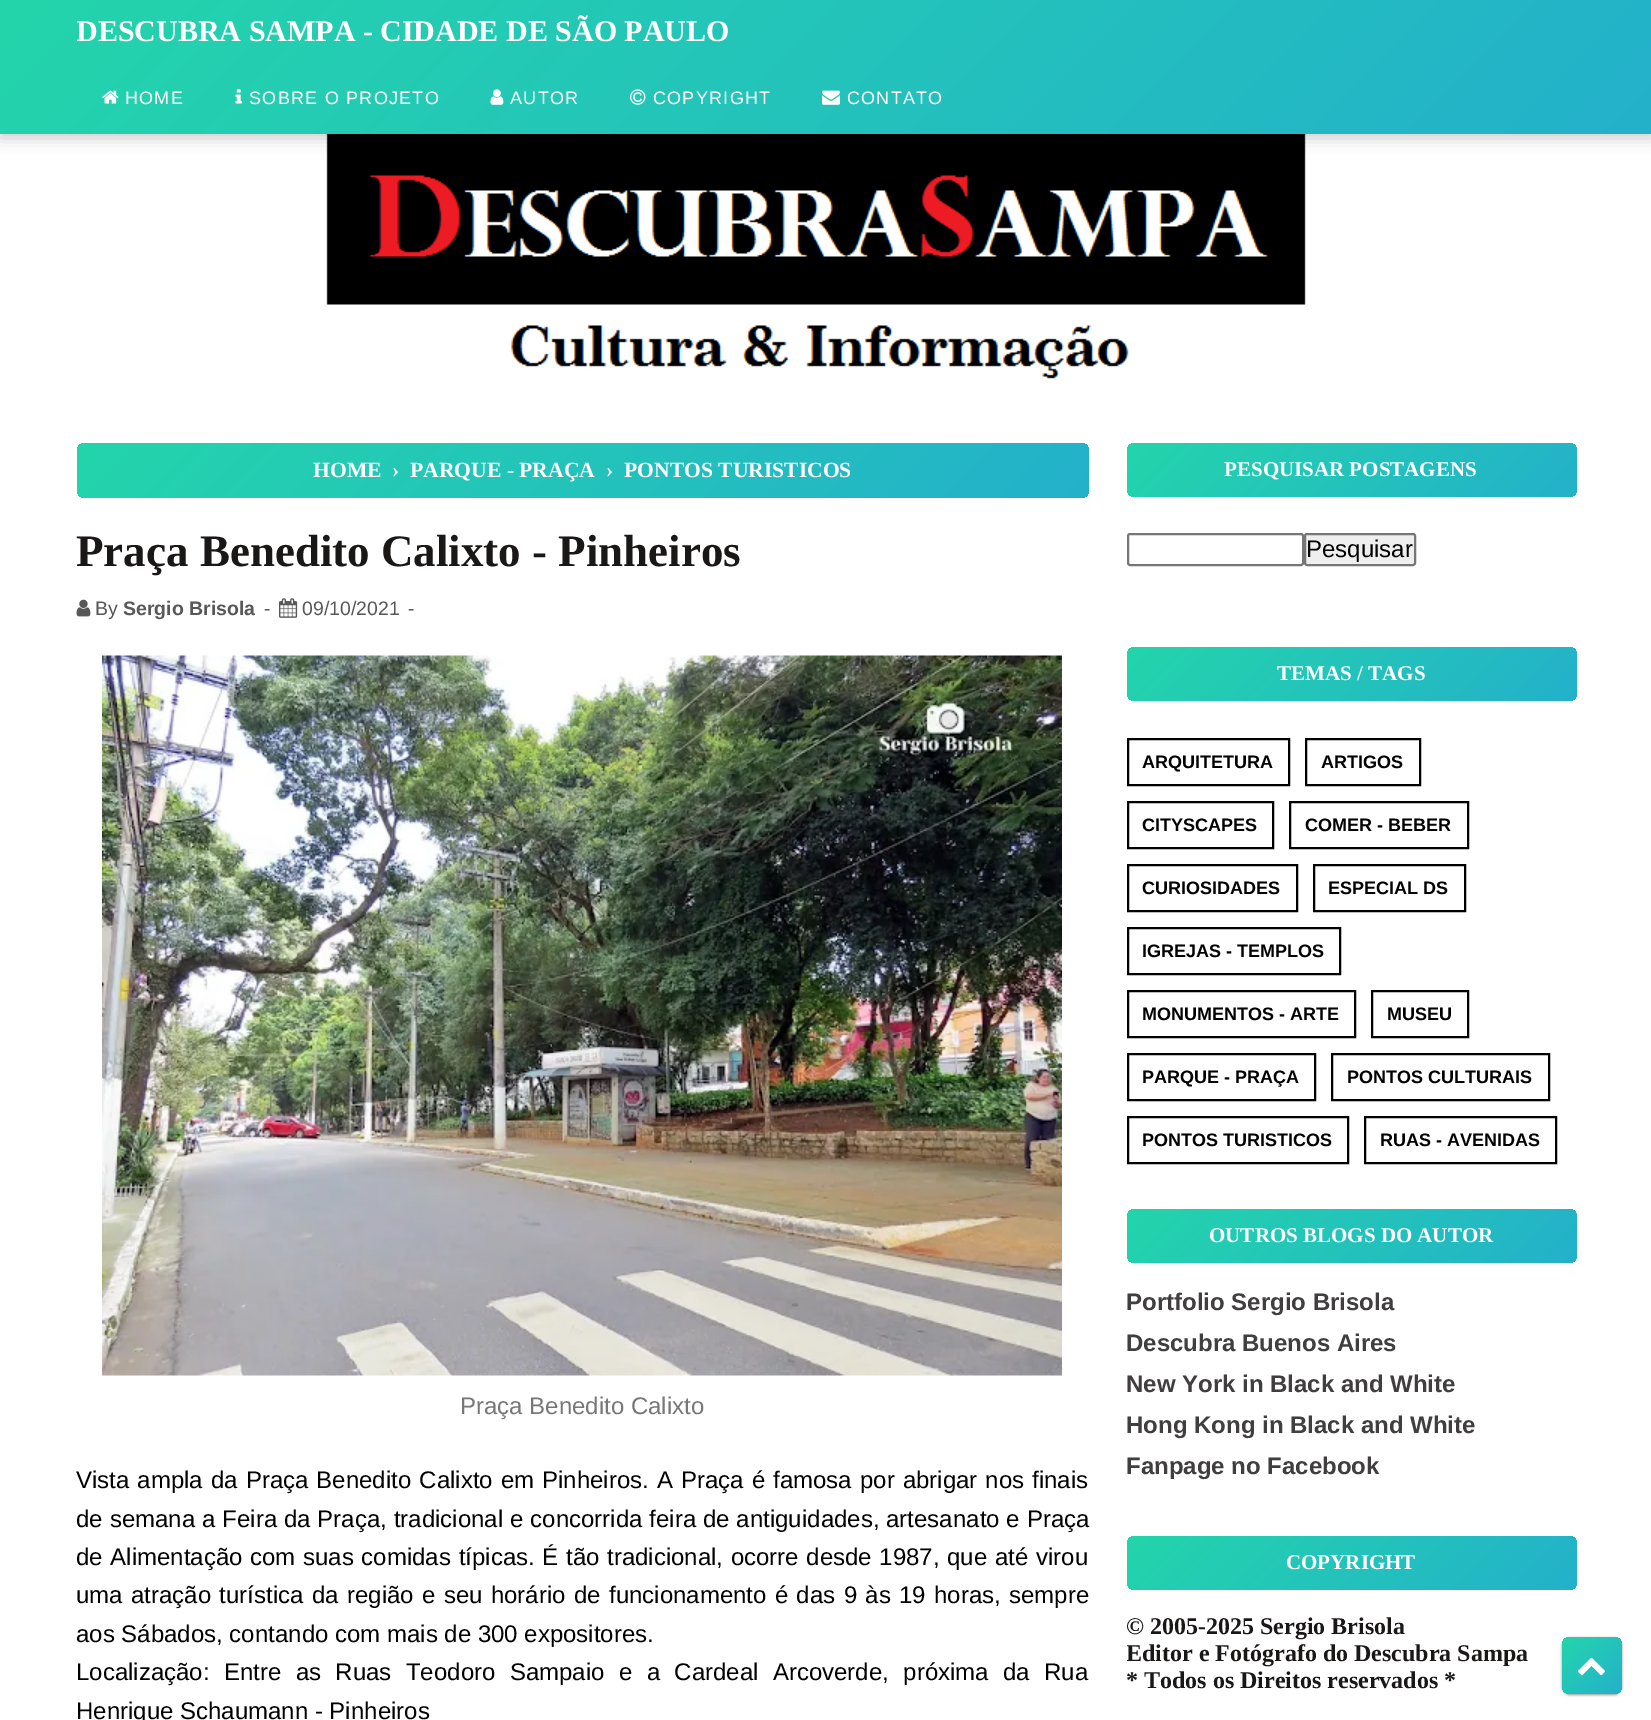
%!PS
<< /PageSize [1651 1720] /PageUsesTransparency true >> setpagedevice
/alpha { dup .setfillconstantalpha .setstrokeconstantalpha } def
/roundrect { 5 dict begin { /r /h /w /y /x } { exch def } forall
  x r add y moveto x w add y 2 copy h add r arct x w add y h add x 1 index r arct
  x y h add x y r arct x y 2 copy exch w add exch r arct closepath end } def
/shadow { 12 dict begin { /a /b /q /h /w /y /x } { exch def } forall gsave /was 0 def
  9 -2 -9 { dup b mul 4 div /e exch def 1 sub .425 mul 2.718 exch exp 1 add a .99 .min exch div /now exch def
    1 1 now sub 1 was sub div sub alpha /was now def
    w h .min e 2 mul add 0 gt { x e sub y e sub w e 2 mul add h e 2 mul add
      q e add b .6 mul add w h .min 2 div e add .min 0 .max roundrect fill } if } for grestore end } def
/picture { 5 dict begin { /h /w /y /x /name } { exch def } forall
  gsave x y translate w h scale
  w h 8 [w 0 0 h 0 0] name (r) file false 3 colorimage grestore end } def
0 .pushpdf14devicefilter
0 1720 translate 1 -1 scale
4 setmiterlimit
1 setgray
0 0 1651 1720 rectfill
(img6.rgb) 326 134 980 245 picture
0 setgray
0 5 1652 133 0 7.5 0.2 shadow
gsave newpath 0 0 moveto 1651 0 lineto 1651 134 lineto 0 134 lineto closepath clip newpath
<< /ShadingType 2 /ColorSpace /DeviceRGB /Coords [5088 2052 1518 -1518] /Extend [true true] /Function << /FunctionType 3 /Domain [0 1] /Functions [<< /FunctionType 2 /Domain [0 1] /C0 [0.933 0.467 0.322] /C1 [0.906 0.235 0.494] /N 1 >> << /FunctionType 2 /Domain [0 1] /C0 [0.906 0.235 0.494] /C1 [0.137 0.651 0.835] /N 1 >> << /FunctionType 2 /Domain [0 1] /C0 [0.137 0.651 0.835] /C1 [0.137 0.835 0.671] /N 1 >>] /Bounds [0.33 0.67] /Encode [0 1 0 1 0 1] >> >> shfill grestore
gsave
77 0 652 62 rectclip
/LiberationSerif-Bold [30 0 0 -30 0 0] selectfont
1 setgray
76 41 moveto (DESCUBRA SAMPA - CIDADE DE SÃO PAULO) show
grestore
(img1.rgb) 102 90 17 14 picture
/LiberationSans-Regular [18 0 0 -18 0 0] selectfont
1 setgray
125 104 moveto 1.25 0 (HOME) ashow
(img2.rgb) 235 89 7 15 picture
249 104 moveto 1.25 0 (SOBRE O PROJETO) ashow
(img3.rgb) 490 89 14 16 picture
510 104 moveto 1.25 0 (AUTOR) ashow
(img4.rgb) 630 89 16 16 picture
653 104 moveto 1.25 0 (COPYRIGHT) ashow
(img5.rgb) 822 90 18 15 picture
847 104 moveto 1.25 0 (CONTATO) ashow
gsave 77 443 1012 55 8 roundrect clip newpath
<< /ShadingType 2 /ColorSpace /DeviceRGB /Coords [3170 1622 1034 -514] /Extend [true true] /Function << /FunctionType 3 /Domain [0 1] /Functions [<< /FunctionType 2 /Domain [0 1] /C0 [0.933 0.467 0.322] /C1 [0.906 0.235 0.494] /N 1 >> << /FunctionType 2 /Domain [0 1] /C0 [0.906 0.235 0.494] /C1 [0.137 0.651 0.835] /N 1 >> << /FunctionType 2 /Domain [0 1] /C0 [0.137 0.651 0.835] /C1 [0.137 0.835 0.671] /N 1 >>] /Bounds [0.33 0.67] /Encode [0 1 0 1 0 1] >> >> shfill grestore
/LiberationSerif-Bold [21.6 0 0 -21.6 0 0] selectfont
313 477 moveto (HOME) show
392 477 moveto (›) show
410 477 moveto (PARQUE - PRAÇA) show
606 477 moveto (›) show
624 477 moveto (PONTOS TURISTICOS) show
/LiberationSerif-Bold [45 0 0 -45 0 0] selectfont
0.102 0.09 0.09 setrgbcolor
76 566 moveto (Praça Benedito Calixto - Pinheiros) show
(img7.rgb) 76 599 15 18 picture
/LiberationSans-Regular [19.5 0 0 -19.5 0 0] selectfont
0.349 0.345 0.345 setrgbcolor
95 615 moveto (By) show
/LiberationSans-Bold [19.5 0 0 -19.5 0 0] selectfont
123 615 moveto (Sergio Brisola) show
/LiberationSans-Regular [19.5 0 0 -19.5 0 0] selectfont
264 615 moveto (-) show
(img8.rgb) 279 598 19 20 picture
302 615 moveto (09/10/2021) show
408 615 moveto (-) show
(img9.rgb) 102 655 960 721 picture
/LiberationSans-Regular [24 0 0 -24 0 0] selectfont
0.467 setgray
460 1414 moveto (Praça Benedito Calixto) show
0 setgray
76 1488 moveto 1.4 0 32 (Vista ampla da Praça Benedito Calixto em Pinheiros. A Praça é famosa por abrigar nos finais) widthshow
76 1527 moveto 0.25 0 32 (de semana a Feira da Praça, tradicional e concorrida feira de antiguidades, artesanato e Praça) widthshow
76 1565 moveto 1 0 32 (de Alimentação com suas comidas típicas. É tão tradicional, ocorre desde 1987, que até virou) widthshow
76 1603 moveto 1.7 0 32 (uma atração turística da região e seu horário de funcionamento é das 9 às 19 horas, sempre) widthshow
76 1642 moveto (aos Sábados, contando com mais de 300 expositores.) show
76 1680 moveto 7.75 0 32 (Localização: Entre as Ruas Teodoro Sampaio e a Cardeal Arcoverde, próxima da Rua) widthshow
76 1719 moveto (Henrique Schaumann - Pinheiros) show
gsave 1127 443 450 54 8 roundrect clip newpath
<< /ShadingType 2 /ColorSpace /DeviceRGB /Coords [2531 1055 1523 47] /Extend [true true] /Function << /FunctionType 3 /Domain [0 1] /Functions [<< /FunctionType 2 /Domain [0 1] /C0 [0.933 0.467 0.322] /C1 [0.906 0.235 0.494] /N 1 >> << /FunctionType 2 /Domain [0 1] /C0 [0.906 0.235 0.494] /C1 [0.137 0.651 0.835] /N 1 >> << /FunctionType 2 /Domain [0 1] /C0 [0.137 0.651 0.835] /C1 [0.137 0.835 0.671] /N 1 >>] /Bounds [0.33 0.67] /Encode [0 1 0 1 0 1] >> >> shfill grestore
/LiberationSerif-Bold [21 0 0 -21 0 0] selectfont
1 setgray
1224 476 moveto (PESQUISAR POSTAGENS) show
0.463 setgray
2 setlinewidth
1128 534 175 31 2 roundrect stroke
0.937 setgray
1305 534 110 31 2 roundrect gsave fill grestore
0.463 setgray
stroke
/LiberationSans-Regular [24 0 0 -24 0 0] selectfont
0 setgray
1306 557 moveto (Pesquisar) show
gsave 1127 647 450 54 8 roundrect clip newpath
<< /ShadingType 2 /ColorSpace /DeviceRGB /Coords [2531 1259 1523 251] /Extend [true true] /Function << /FunctionType 3 /Domain [0 1] /Functions [<< /FunctionType 2 /Domain [0 1] /C0 [0.933 0.467 0.322] /C1 [0.906 0.235 0.494] /N 1 >> << /FunctionType 2 /Domain [0 1] /C0 [0.906 0.235 0.494] /C1 [0.137 0.651 0.835] /N 1 >> << /FunctionType 2 /Domain [0 1] /C0 [0.137 0.651 0.835] /C1 [0.137 0.835 0.671] /N 1 >>] /Bounds [0.33 0.67] /Encode [0 1 0 1 0 1] >> >> shfill grestore
/LiberationSerif-Bold [21 0 0 -21 0 0] selectfont
1 setgray
1277 680 moveto (TEMAS / TAGS) show
0 setgray
1128 739 161 46 rectstroke
/LiberationSans-Bold [18 0 0 -18 0 0] selectfont
1142 768 moveto (ARQUITETURA) show
1306 739 114 46 rectstroke
1321 768 moveto (ARTIGOS) show
1128 802 145 46 rectstroke
1142 831 moveto (CITYSCAPES) show
1290 802 178 46 rectstroke
1305 831 moveto (COMER - BEBER) show
1128 865 169 46 rectstroke
1142 894 moveto (CURIOSIDADES) show
1314 865 151 46 rectstroke
1328 894 moveto (ESPECIAL DS) show
1128 928 212 46 rectstroke
1142 957 moveto (IGREJAS - TEMPLOS) show
1128 991 227 46 rectstroke
1142 1020 moveto (MONUMENTOS - ARTE) show
1372 991 96 46 rectstroke
1387 1020 moveto (MUSEU) show
1128 1054 187 46 rectstroke
1142 1083 moveto (PARQUE - PRAÇA) show
1332 1054 217 46 rectstroke
1347 1083 moveto (PONTOS CULTURAIS) show
1128 1117 220 46 rectstroke
1142 1146 moveto (PONTOS TURISTICOS) show
1365 1117 191 46 rectstroke
1380 1146 moveto (RUAS - AVENIDAS) show
gsave 1127 1209 450 54 8 roundrect clip newpath
<< /ShadingType 2 /ColorSpace /DeviceRGB /Coords [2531 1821 1523 813] /Extend [true true] /Function << /FunctionType 3 /Domain [0 1] /Functions [<< /FunctionType 2 /Domain [0 1] /C0 [0.933 0.467 0.322] /C1 [0.906 0.235 0.494] /N 1 >> << /FunctionType 2 /Domain [0 1] /C0 [0.906 0.235 0.494] /C1 [0.137 0.651 0.835] /N 1 >> << /FunctionType 2 /Domain [0 1] /C0 [0.137 0.651 0.835] /C1 [0.137 0.835 0.671] /N 1 >>] /Bounds [0.33 0.67] /Encode [0 1 0 1 0 1] >> >> shfill grestore
/LiberationSerif-Bold [21 0 0 -21 0 0] selectfont
1 setgray
1209 1242 moveto (OUTROS BLOGS DO AUTOR) show
/LiberationSans-Bold [24 0 0 -24 0 0] selectfont
0.251 0.243 0.243 setrgbcolor
1126 1310 moveto (Portfolio Sergio Brisola) show
1126 1351 moveto (Descubra Buenos Aires) show
1126 1392 moveto (New York in Black and White) show
1126 1433 moveto (Hong Kong in Black and White) show
1126 1474 moveto (Fanpage no Facebook) show
gsave 1127 1536 450 54 8 roundrect clip newpath
<< /ShadingType 2 /ColorSpace /DeviceRGB /Coords [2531 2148 1523 1140] /Extend [true true] /Function << /FunctionType 3 /Domain [0 1] /Functions [<< /FunctionType 2 /Domain [0 1] /C0 [0.933 0.467 0.322] /C1 [0.906 0.235 0.494] /N 1 >> << /FunctionType 2 /Domain [0 1] /C0 [0.906 0.235 0.494] /C1 [0.137 0.651 0.835] /N 1 >> << /FunctionType 2 /Domain [0 1] /C0 [0.137 0.651 0.835] /C1 [0.137 0.835 0.671] /N 1 >>] /Bounds [0.33 0.67] /Encode [0 1 0 1 0 1] >> >> shfill grestore
/LiberationSerif-Bold [21 0 0 -21 0 0] selectfont
1 setgray
1286 1569 moveto (COPYRIGHT) show
/LiberationSerif-Bold [24 0 0 -24 0 0] selectfont
0.102 0.09 0.09 setrgbcolor
1126 1634 moveto (© 2005-2025 Sergio Brisola) show
gsave
1127 1536 450 158 rectclip
1126 1661 moveto (Editor e Fotógrafo do Descubra Sampa) show
grestore
1126 1688 moveto (* Todos os Direitos reservados *) show
0 setgray
1562 1638 60 57 8 1 0.3 shadow
1562 1638 60 57 8 1.5 0.15 shadow
gsave 1562 1637 60 57 8 roundrect clip newpath
<< /ShadingType 2 /ColorSpace /DeviceRGB /Coords [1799 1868 1565 1634] /Extend [true true] /Function << /FunctionType 3 /Domain [0 1] /Functions [<< /FunctionType 2 /Domain [0 1] /C0 [0.933 0.467 0.322] /C1 [0.906 0.235 0.494] /N 1 >> << /FunctionType 2 /Domain [0 1] /C0 [0.906 0.235 0.494] /C1 [0.137 0.651 0.835] /N 1 >> << /FunctionType 2 /Domain [0 1] /C0 [0.137 0.651 0.835] /C1 [0.137 0.835 0.671] /N 1 >>] /Bounds [0.33 0.67] /Encode [0 1 0 1 0 1] >> >> shfill grestore
(img10.rgb) 1578 1657 27 19 picture
.poppdf14devicefilter showpage
